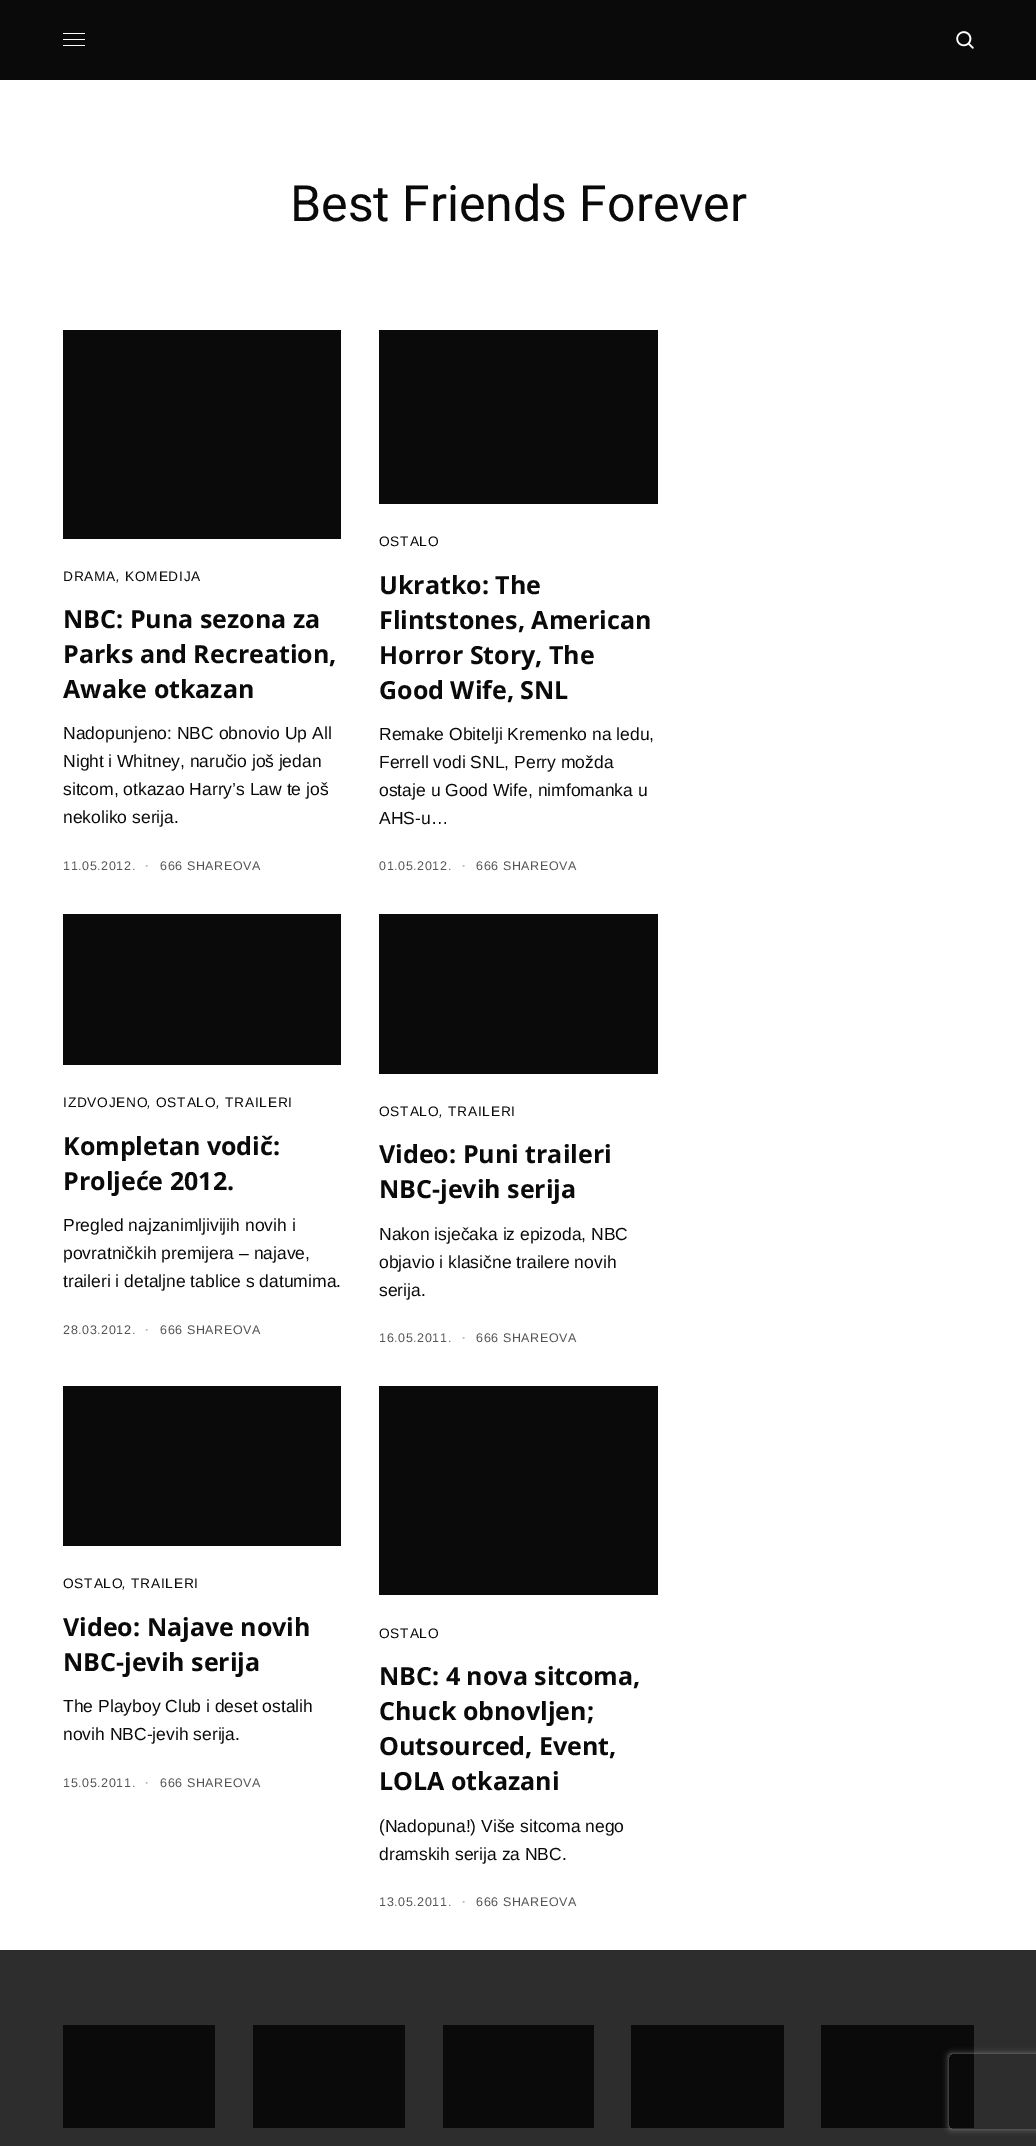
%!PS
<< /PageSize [1036 2146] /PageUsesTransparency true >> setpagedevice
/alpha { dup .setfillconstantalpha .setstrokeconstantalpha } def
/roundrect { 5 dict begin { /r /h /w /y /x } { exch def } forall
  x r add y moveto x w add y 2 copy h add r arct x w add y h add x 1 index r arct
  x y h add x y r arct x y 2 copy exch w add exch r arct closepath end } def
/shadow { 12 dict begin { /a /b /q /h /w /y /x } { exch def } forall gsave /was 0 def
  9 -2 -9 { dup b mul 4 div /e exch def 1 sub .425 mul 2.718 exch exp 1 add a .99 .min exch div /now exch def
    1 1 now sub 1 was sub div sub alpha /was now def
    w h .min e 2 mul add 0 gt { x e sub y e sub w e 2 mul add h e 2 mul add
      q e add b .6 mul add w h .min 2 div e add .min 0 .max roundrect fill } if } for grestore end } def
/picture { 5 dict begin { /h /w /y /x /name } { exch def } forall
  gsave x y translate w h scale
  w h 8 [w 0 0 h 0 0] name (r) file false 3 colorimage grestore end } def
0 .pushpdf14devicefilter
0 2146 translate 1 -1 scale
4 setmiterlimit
1 setgray
0 0 1036 2146 rectfill
0.039 setgray
0 0 1036 80 rectfill
1 setgray
63 33 22 1 0.5 roundrect fill
63 39 22 1 0.5 roundrect fill
63 45 22 1 0.5 roundrect fill
(img1.rgb) 956 31 18 18 picture
/Roboto-Regular [50 0 0 -50 0 0] selectfont
0.039 setgray
290 221 moveto (Best Friends Forever) show
63 330 278 209 rectfill
/LiberationSans-Regular [13.75 0 0 -13.75 0 0] selectfont
63 581 moveto 0.75 0 (DRAMA) ashow
/LiberationSans-Italic [13.75 0 0 -13.75 0 0] selectfont
116 581 moveto 0.75 0 (,) ashow
/LiberationSans-Regular [13.75 0 0 -13.75 0 0] selectfont
125 581 moveto 0.75 0 (KOMEDIJA) ashow
/OpenSans-Bold [25 0 0 -25 0 0] selectfont
63 628 moveto (NBC: Puna sezona za) show
63 663 moveto (Parks and Recreation,) show
63 698 moveto (Awake otkazan) show
/LiberationSans-Regular [17.5 0 0 -17.5 0 0] selectfont
63 739 moveto (Nadopunjeno: NBC obnovio Up All) show
63 767 moveto -0.25 0 32 (Night i Whitney, naručio još jedan) widthshow
63 795 moveto (sitcom, otkazao Harry’s Law te još) show
63 823 moveto (nekoliko serija.) show
/LiberationSans-Regular [12.5 0 0 -12.5 0 0] selectfont
0.329 setgray
63 870 moveto 0.6 0 (11.05.2012.) ashow
/LiberationSans-Bold [12.5 0 0 -12.5 0 0] selectfont
0.71 setgray
145 870 moveto 0.6 0 (·) ashow
/LiberationSans-Regular [12.5 0 0 -12.5 0 0] selectfont
0.329 setgray
160 870 moveto 0.6 0 (666 SHAREOVA) ashow
0.039 setgray
379 330 279 174 rectfill
/LiberationSans-Regular [13.75 0 0 -13.75 0 0] selectfont
379 546 moveto 0.75 0 (OSTALO) ashow
/OpenSans-Bold [25 0 0 -25 0 0] selectfont
379 594 moveto (Ukratko: The) show
379 629 moveto (Flintstones, American) show
379 664 moveto (Horror Story, The) show
379 699 moveto (Good Wife, SNL) show
/LiberationSans-Regular [17.5 0 0 -17.5 0 0] selectfont
379 740 moveto (Remake Obitelji Kremenko na ledu,) show
379 768 moveto (Ferrell vodi SNL, Perry možda) show
379 796 moveto (ostaje u Good Wife, nimfomanka u) show
379 824 moveto (AHS-u…) show
/LiberationSans-Regular [12.5 0 0 -12.5 0 0] selectfont
0.329 setgray
379 870 moveto 0.6 0 (01.05.2012.) ashow
/LiberationSans-Bold [12.5 0 0 -12.5 0 0] selectfont
0.71 setgray
462 870 moveto 0.6 0 (·) ashow
/LiberationSans-Regular [12.5 0 0 -12.5 0 0] selectfont
0.329 setgray
476 870 moveto 0.6 0 (666 SHAREOVA) ashow
0.039 setgray
63 914 278 151 rectfill
/LiberationSans-Regular [13.75 0 0 -13.75 0 0] selectfont
63 1107 moveto 0.75 0 (IZDVOJENO) ashow
/LiberationSans-Italic [13.75 0 0 -13.75 0 0] selectfont
147 1107 moveto 0.75 0 (,) ashow
/LiberationSans-Regular [13.75 0 0 -13.75 0 0] selectfont
156 1107 moveto 0.75 0 (OSTALO) ashow
/LiberationSans-Italic [13.75 0 0 -13.75 0 0] selectfont
216 1107 moveto 0.75 0 (,) ashow
/LiberationSans-Regular [13.75 0 0 -13.75 0 0] selectfont
225 1107 moveto 0.75 0 (TRAILERI) ashow
/OpenSans-Bold [25 0 0 -25 0 0] selectfont
63 1155 moveto (Kompletan vodič:) show
63 1190 moveto (Proljeće 2012.) show
/LiberationSans-Regular [17.5 0 0 -17.5 0 0] selectfont
63 1231 moveto (Pregled najzanimljivijih novih i) show
63 1259 moveto (povratničkih premijera – najave,) show
63 1287 moveto (traileri i detaljne tablice s datumima.) show
/LiberationSans-Regular [12.5 0 0 -12.5 0 0] selectfont
0.329 setgray
63 1334 moveto 0.6 0 (28.03.2012.) ashow
/LiberationSans-Bold [12.5 0 0 -12.5 0 0] selectfont
0.71 setgray
145 1334 moveto 0.6 0 (·) ashow
/LiberationSans-Regular [12.5 0 0 -12.5 0 0] selectfont
0.329 setgray
160 1334 moveto 0.6 0 (666 SHAREOVA) ashow
0.039 setgray
379 914 279 160 rectfill
/LiberationSans-Regular [13.75 0 0 -13.75 0 0] selectfont
379 1116 moveto 0.75 0 (OSTALO) ashow
/LiberationSans-Italic [13.75 0 0 -13.75 0 0] selectfont
439 1116 moveto 0.75 0 (,) ashow
/LiberationSans-Regular [13.75 0 0 -13.75 0 0] selectfont
448 1116 moveto 0.75 0 (TRAILERI) ashow
/OpenSans-Bold [25 0 0 -25 0 0] selectfont
379 1163 moveto (Video: Puni traileri) show
379 1198 moveto (NBC-jevih serija) show
/LiberationSans-Regular [17.5 0 0 -17.5 0 0] selectfont
379 1240 moveto (Nakon isječaka iz epizoda, NBC) show
379 1268 moveto (objavio i klasične trailere novih) show
379 1296 moveto (serija.) show
/LiberationSans-Regular [12.5 0 0 -12.5 0 0] selectfont
0.329 setgray
379 1342 moveto 0.6 0 (16.05.2011.) ashow
/LiberationSans-Bold [12.5 0 0 -12.5 0 0] selectfont
0.71 setgray
462 1342 moveto 0.6 0 (·) ashow
/LiberationSans-Regular [12.5 0 0 -12.5 0 0] selectfont
0.329 setgray
476 1342 moveto 0.6 0 (666 SHAREOVA) ashow
0.039 setgray
63 1386 278 160 rectfill
/LiberationSans-Regular [13.75 0 0 -13.75 0 0] selectfont
63 1588 moveto 0.75 0 (OSTALO) ashow
/LiberationSans-Italic [13.75 0 0 -13.75 0 0] selectfont
122 1588 moveto 0.75 0 (,) ashow
/LiberationSans-Regular [13.75 0 0 -13.75 0 0] selectfont
131 1588 moveto 0.75 0 (TRAILERI) ashow
/OpenSans-Bold [25 0 0 -25 0 0] selectfont
63 1636 moveto (Video: Najave novih) show
63 1671 moveto (NBC-jevih serija) show
/LiberationSans-Regular [17.5 0 0 -17.5 0 0] selectfont
63 1712 moveto (The Playboy Club i deset ostalih) show
63 1740 moveto (novih NBC-jevih serija.) show
/LiberationSans-Regular [12.5 0 0 -12.5 0 0] selectfont
0.329 setgray
63 1787 moveto 0.6 0 (15.05.2011.) ashow
/LiberationSans-Bold [12.5 0 0 -12.5 0 0] selectfont
0.71 setgray
145 1787 moveto 0.6 0 (·) ashow
/LiberationSans-Regular [12.5 0 0 -12.5 0 0] selectfont
0.329 setgray
160 1787 moveto 0.6 0 (666 SHAREOVA) ashow
0.039 setgray
379 1386 279 209 rectfill
/LiberationSans-Regular [13.75 0 0 -13.75 0 0] selectfont
379 1638 moveto 0.75 0 (OSTALO) ashow
/OpenSans-Bold [25 0 0 -25 0 0] selectfont
379 1685 moveto (NBC: 4 nova sitcoma,) show
379 1720 moveto (Chuck obnovljen;) show
379 1755 moveto (Outsourced, Event,) show
379 1790 moveto (LOLA otkazani) show
/LiberationSans-Regular [17.5 0 0 -17.5 0 0] selectfont
379 1832 moveto (\(Nadopuna!\) Više sitcoma nego) show
379 1860 moveto (dramskih serija za NBC.) show
/LiberationSans-Regular [12.5 0 0 -12.5 0 0] selectfont
0.329 setgray
379 1906 moveto 0.6 0 (13.05.2011.) ashow
/LiberationSans-Bold [12.5 0 0 -12.5 0 0] selectfont
0.71 setgray
462 1906 moveto 0.6 0 (·) ashow
/LiberationSans-Regular [12.5 0 0 -12.5 0 0] selectfont
0.329 setgray
476 1906 moveto 0.6 0 (666 SHAREOVA) ashow
0.176 setgray
0 1950 1036 196 rectfill
0.039 setgray
63 2025 152 103 rectfill
253 2025 152 103 rectfill
443 2025 151 103 rectfill
631 2025 153 103 rectfill
821 2025 153 103 rectfill
gsave
newpath 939 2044 moveto 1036 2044 lineto 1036 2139 lineto 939 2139 lineto closepath 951.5 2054 moveto 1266.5 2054 lineto 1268 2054 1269 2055 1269 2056.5 curveto 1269 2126.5 lineto 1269 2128 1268 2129 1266.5 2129 curveto 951.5 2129 lineto 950 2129 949 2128 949 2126.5 curveto 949 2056.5 lineto 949 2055 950 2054 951.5 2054 curveto closepath eoclip newpath
0.502 setgray
949 2054 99 75 2.5 3 1 shadow
grestore
.poppdf14devicefilter showpage
